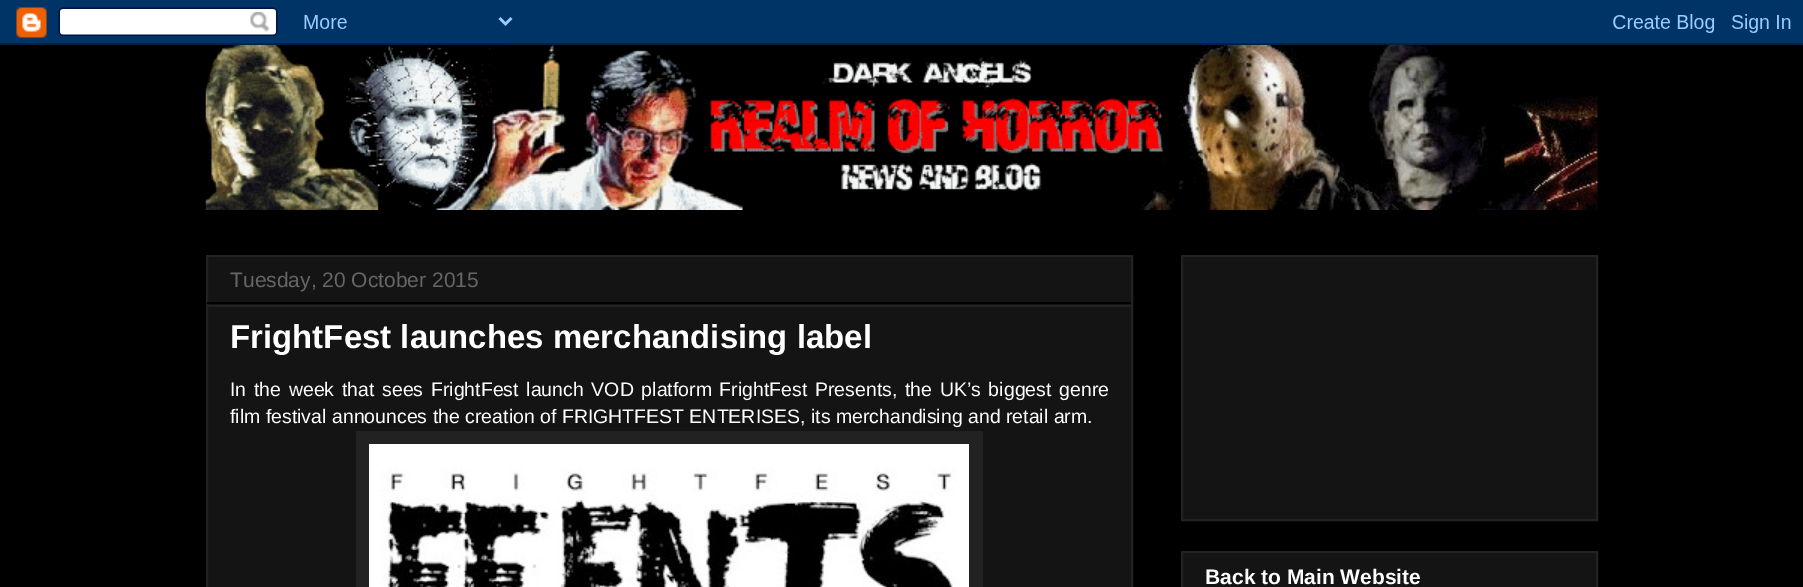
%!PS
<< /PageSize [1803 587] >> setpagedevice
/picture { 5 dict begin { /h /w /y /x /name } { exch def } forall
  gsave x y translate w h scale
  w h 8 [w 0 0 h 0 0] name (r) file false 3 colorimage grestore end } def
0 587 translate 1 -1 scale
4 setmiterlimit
0 setgray
0 0 1803 587 rectfill
(img1.rgb) 0 0 1803 45 picture
(img2.rgb) 205 45 1393 165 picture
0.078 setgray
newpath 207 256 moveto 1132 256 lineto 1132 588 lineto 207 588 lineto closepath gsave fill grestore
0.133 setgray
2 setlinewidth
stroke
0 setgray
207 302 924 2 rectfill
/LiberationSans-Regular [21 0 0 -21 0 0] selectfont
0.4 setgray
230 287 moveto (Tuesday, 20 October 2015) show
0.133 setgray
207 305 924 2 rectfill
/LiberationSans-Bold [33 0 0 -33 0 0] selectfont
1 setgray
230 348 moveto (FrightFest launches merchandising label) show
/LiberationSans-Regular [19.5 0 0 -19.5 0 0] selectfont
230 396 moveto 2.25 0 32 (In the week that sees FrightFest launch VOD platform FrightFest Presents, the UK’s biggest genre) widthshow
230 423 moveto (film festival announces the creation of FRIGHTFEST ENTERISES, its merchandising and retail arm.) show
0.133 setgray
356 431 627 156 rectfill
(img3.rgb) 369 444 600 143 picture
0.078 setgray
newpath 1182 256 moveto 1597 256 lineto 1597 520 lineto 1182 520 lineto closepath gsave fill grestore
0.133 setgray
stroke
0.078 setgray
newpath 1182 552 moveto 1597 552 lineto 1597 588 lineto 1182 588 lineto closepath gsave fill grestore
0.133 setgray
stroke
/LiberationSans-Bold [21 0 0 -21 0 0] selectfont
1 setgray
1205 584 moveto (Back to Main Website) show
showpage
